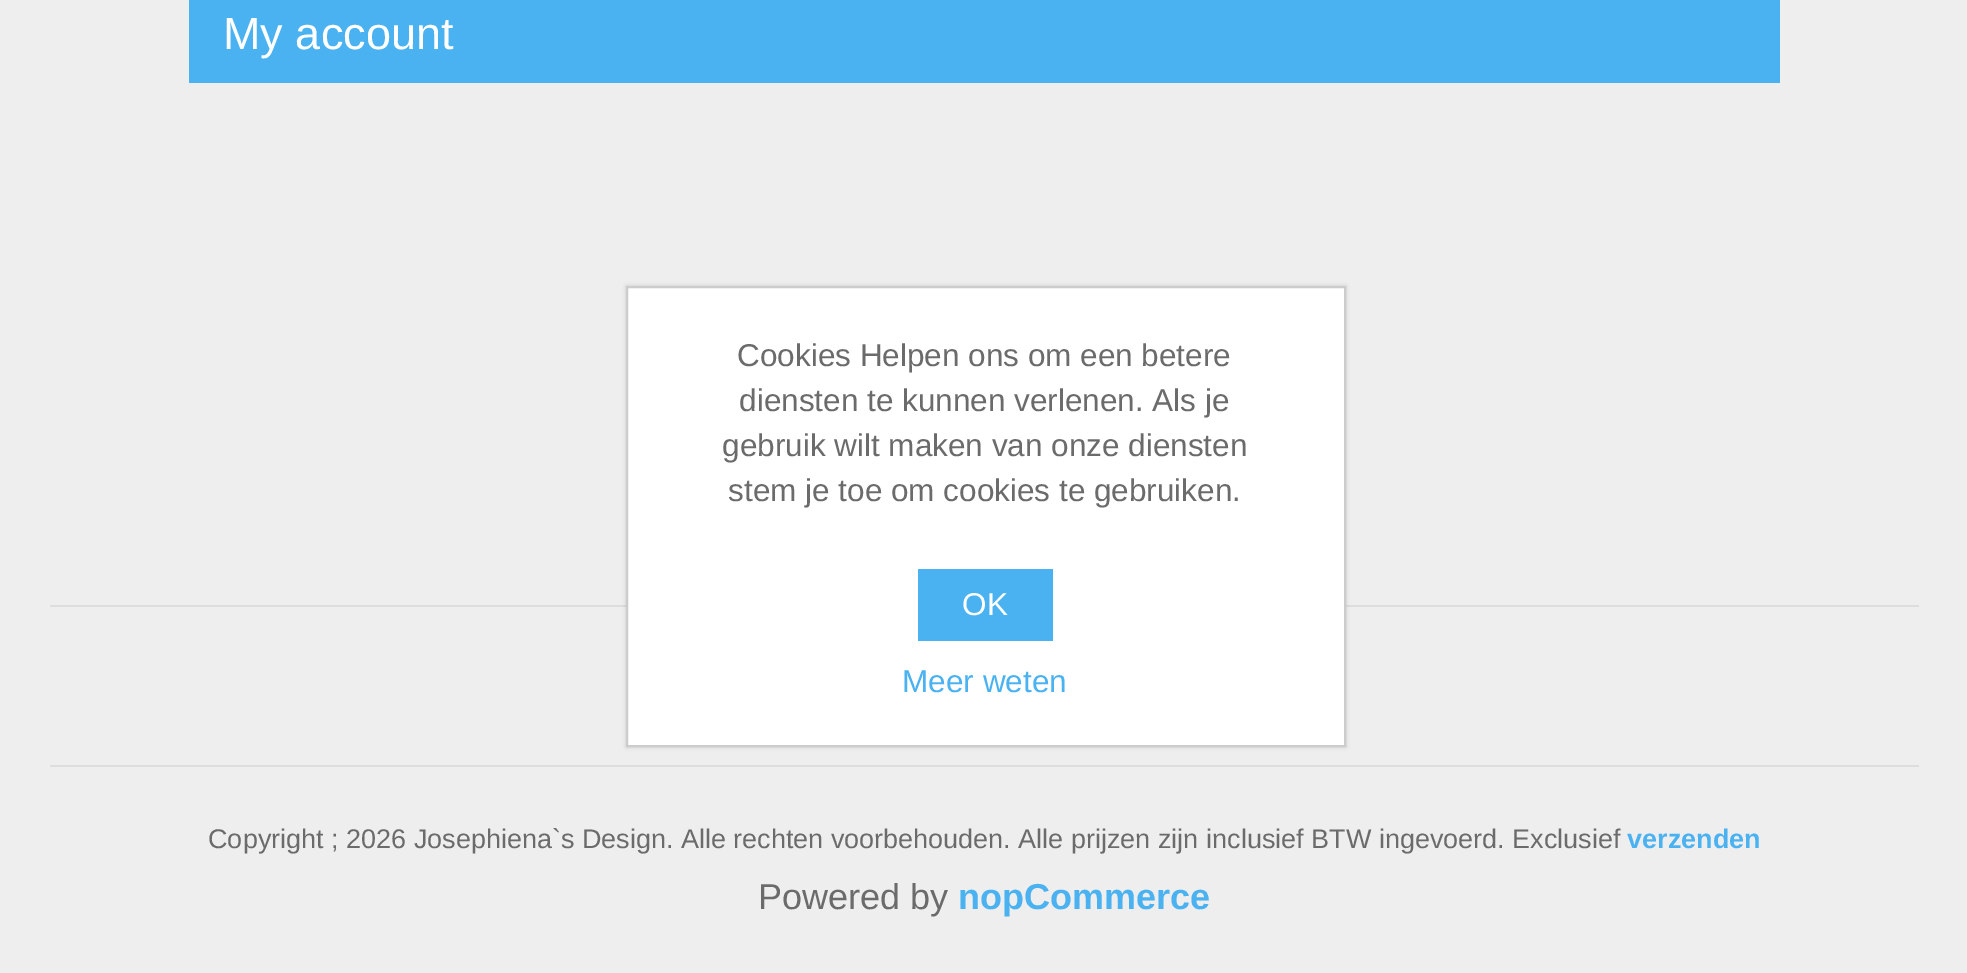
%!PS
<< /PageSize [1967 973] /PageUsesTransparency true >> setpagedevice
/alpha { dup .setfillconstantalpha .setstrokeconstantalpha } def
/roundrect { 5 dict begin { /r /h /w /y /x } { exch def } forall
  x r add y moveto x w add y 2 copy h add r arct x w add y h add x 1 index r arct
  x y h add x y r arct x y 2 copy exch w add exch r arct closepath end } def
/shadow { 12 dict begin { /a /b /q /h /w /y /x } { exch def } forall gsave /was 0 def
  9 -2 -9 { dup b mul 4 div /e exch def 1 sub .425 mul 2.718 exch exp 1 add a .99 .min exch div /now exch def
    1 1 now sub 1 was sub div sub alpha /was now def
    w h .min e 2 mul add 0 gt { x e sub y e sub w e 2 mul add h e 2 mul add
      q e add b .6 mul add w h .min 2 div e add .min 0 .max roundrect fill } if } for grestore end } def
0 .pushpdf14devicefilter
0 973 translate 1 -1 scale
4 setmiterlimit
0.933 setgray
0 0 1967 973 rectfill
0.867 setgray
50 765 1869 2 rectfill
0.29 0.698 0.945 setrgbcolor
189 0 1591 83 rectfill
/LiberationSans-Regular [45 0 0 -45 0 0] selectfont
1 setgray
223 49 moveto (My account) show
0.867 setgray
50 605 1869 2 rectfill
/LiberationSans-Regular [27 0 0 -27 0 0] selectfont
0.42 setgray
208 848 moveto (Copyright ; 2026 Josephiena`s Design. Alle rechten voorbehouden. Alle prijzen zijn inclusief BTW ingevoerd. Exclusief) show
/LiberationSans-Bold [27 0 0 -27 0 0] selectfont
0.29 0.698 0.945 setrgbcolor
1627 848 moveto (verzenden) show
/LiberationSans-Regular [36 0 0 -36 0 0] selectfont
0.42 setgray
758 909 moveto (Powered by) show
/LiberationSans-Bold [36 0 0 -36 0 0] selectfont
0.29 0.698 0.945 setrgbcolor
958 909 moveto (nopCommerce) show
0 setgray
626 286 720 461 0 2 0.15 shadow
1 setgray
newpath 627 287 moveto 1345 287 lineto 1345 746 lineto 627 746 lineto closepath gsave fill grestore
0.8 setgray
2 setlinewidth
stroke
/LiberationSans-Regular [31.5 0 0 -31.5 0 0] selectfont
0.42 setgray
737 366 moveto (Cookies Helpen ons om een betere) show
739 411 moveto (diensten te kunnen verlenen. Als je) show
722 456 moveto (gebruik wilt maken van onze diensten) show
728 501 moveto (stem je toe om cookies te gebruiken.) show
0.29 0.698 0.945 setrgbcolor
918 569 135 72 rectfill
1 setgray
962 615 moveto (OK) show
0.29 0.698 0.945 setrgbcolor
902 692 moveto (Meer weten) show
.poppdf14devicefilter showpage
